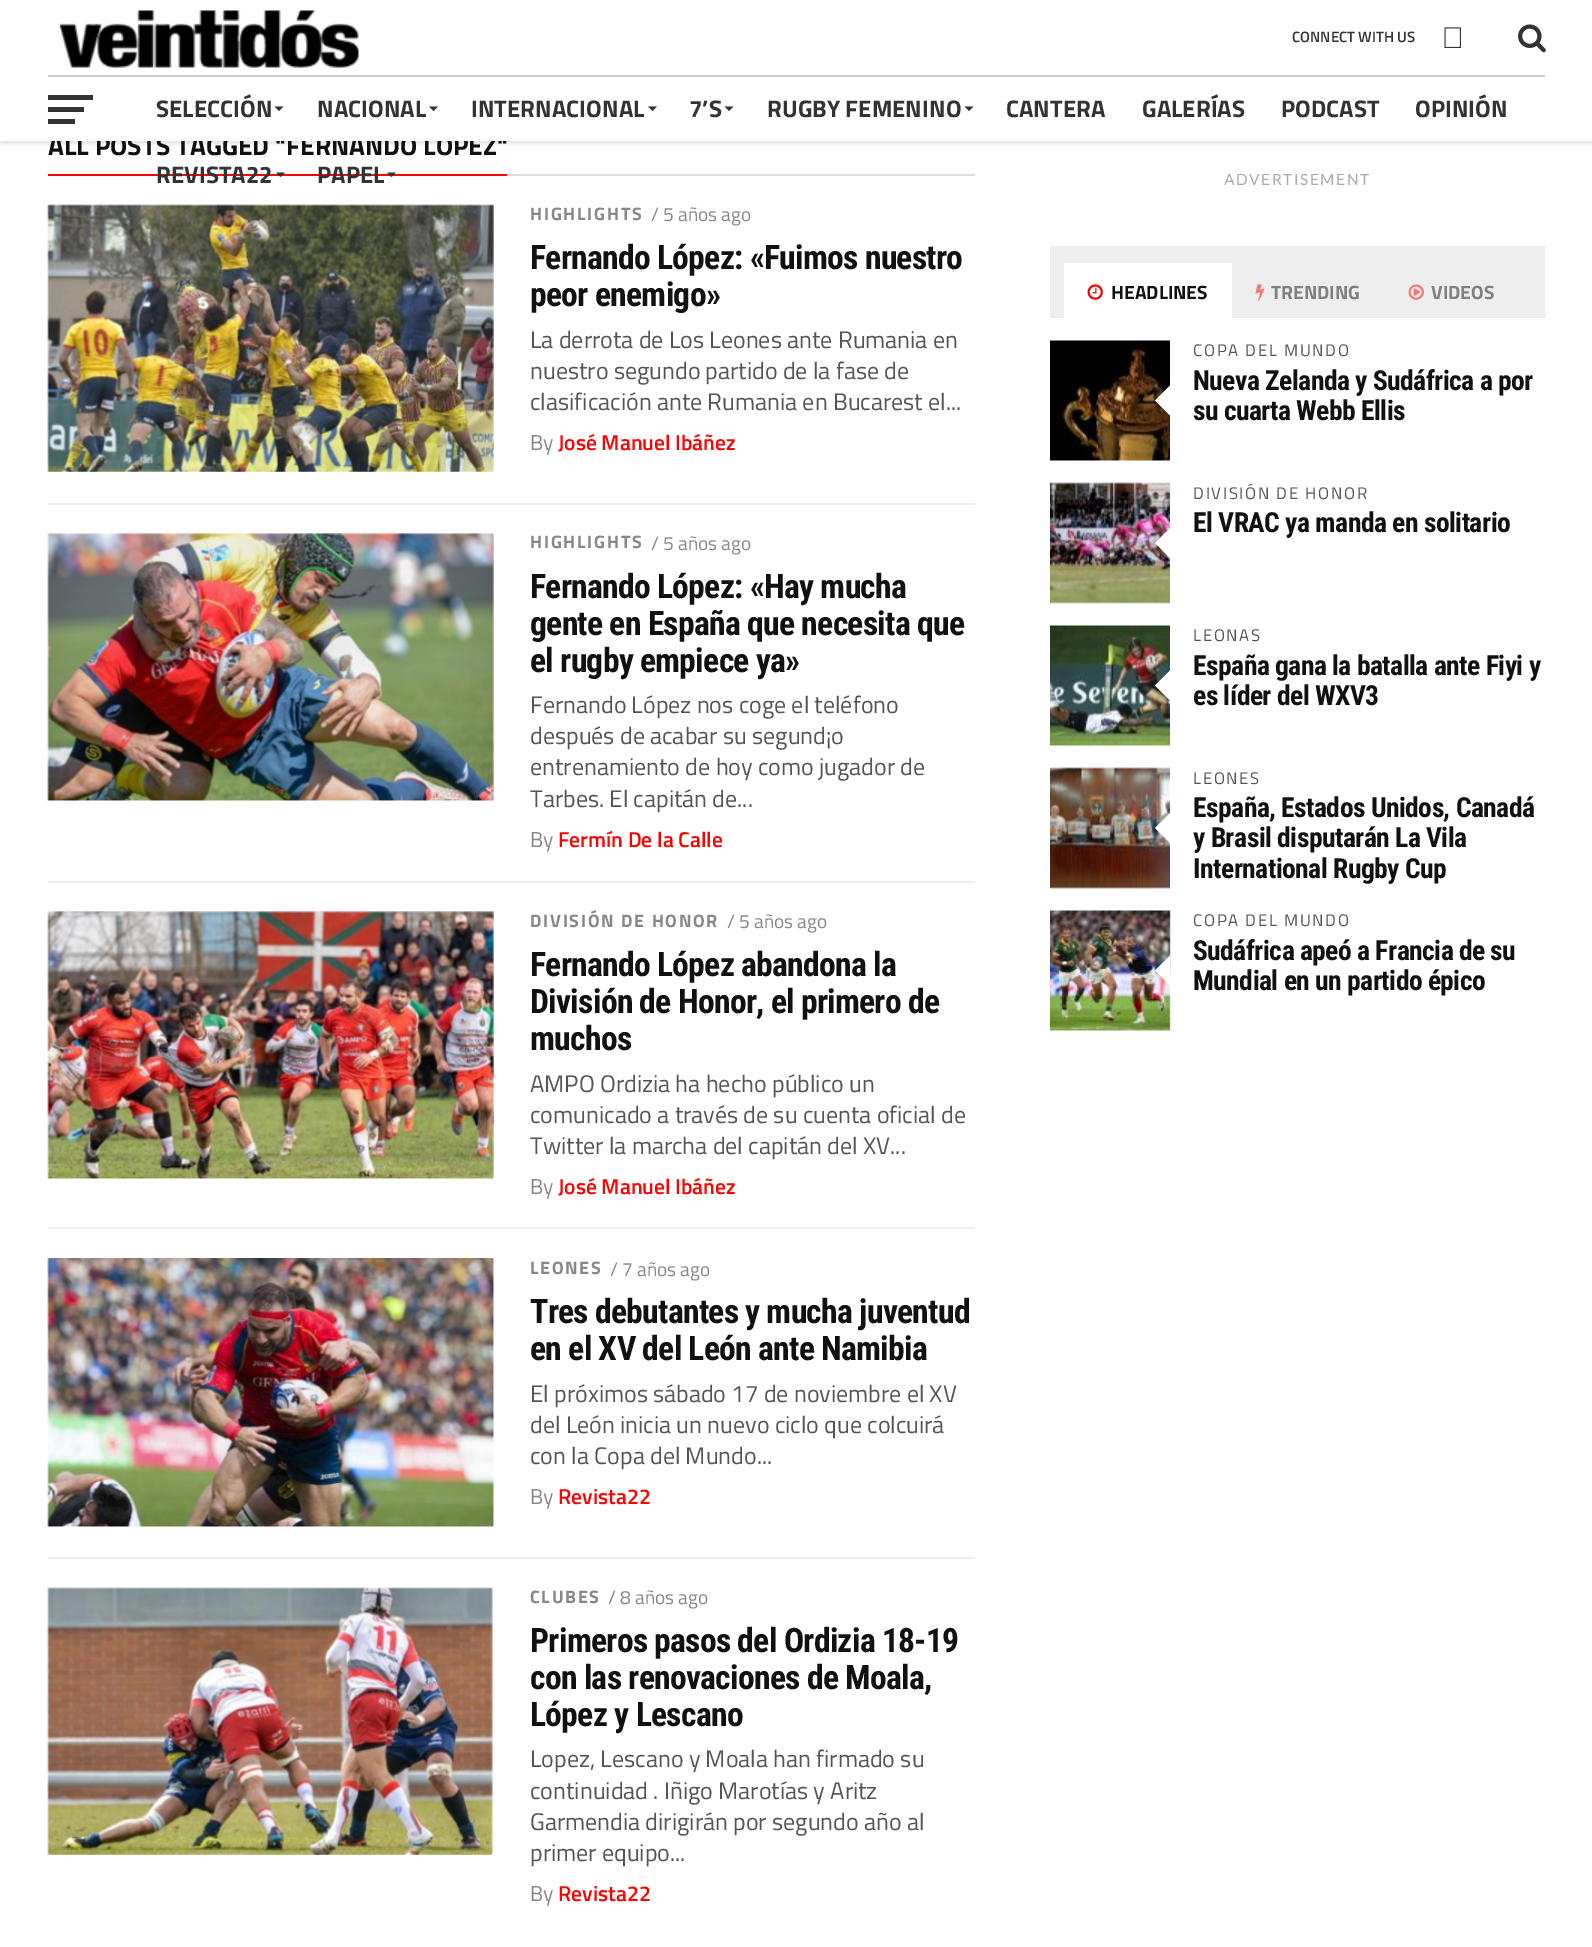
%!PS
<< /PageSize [1592 1947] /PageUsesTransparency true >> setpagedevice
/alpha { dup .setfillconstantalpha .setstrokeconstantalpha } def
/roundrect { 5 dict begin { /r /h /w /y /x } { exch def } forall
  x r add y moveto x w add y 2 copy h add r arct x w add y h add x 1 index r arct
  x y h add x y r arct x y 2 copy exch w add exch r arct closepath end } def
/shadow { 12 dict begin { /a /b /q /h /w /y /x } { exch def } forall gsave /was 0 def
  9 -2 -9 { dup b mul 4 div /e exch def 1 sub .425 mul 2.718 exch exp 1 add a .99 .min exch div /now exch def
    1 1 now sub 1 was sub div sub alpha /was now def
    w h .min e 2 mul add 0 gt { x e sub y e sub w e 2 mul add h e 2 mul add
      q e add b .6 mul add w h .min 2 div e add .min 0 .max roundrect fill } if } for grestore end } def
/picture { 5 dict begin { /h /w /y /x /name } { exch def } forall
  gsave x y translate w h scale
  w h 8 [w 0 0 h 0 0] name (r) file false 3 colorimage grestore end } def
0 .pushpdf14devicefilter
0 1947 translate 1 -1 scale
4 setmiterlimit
1 setgray
0 0 1592 1947 rectfill
0 setgray
0 3 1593 141 0 1.5 0.1 shadow
/TitilliumWeb-Bold [26.4 0 0 -26.4 0 0] selectfont
0.067 setgray
48 155 moveto (ALL POSTS TAGGED "FERNANDO LÓPEZ") show
1 setgray
0 1 1592 140 rectfill
0.8 setgray
48 75 1497 2 rectfill
(img1.rgb) 59 10 300 58 picture
/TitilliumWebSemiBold-SemiBold [15 0 0 -15 0 0] selectfont
0.2 setgray
1292 42 moveto (CONNECT WITH US) show
(img2.rgb) 1444 27 17 21 picture
(img3.rgb) 1518 24 28 29 picture
48 95 45 5 rectfill
48 107 36 5 rectfill
48 119 27 5 rectfill
/TitilliumWeb-Bold [24 0 0 -24 0 0] selectfont
156 117 moveto (SELECCIÓN) show
newpath 274.5 106.5 moveto 283.5 106.5 lineto 279 111 lineto closepath fill
317 117 moveto (NACIONAL) show
newpath 429 106.5 moveto 438 106.5 lineto 433.5 111 lineto closepath fill
471 117 moveto (INTERNACIONAL) show
newpath 648 106.5 moveto 657 106.5 lineto 652.5 111 lineto closepath fill
689 117 moveto (7’S) show
newpath 724.5 106.5 moveto 733.5 106.5 lineto 729 111 lineto closepath fill
767 117 moveto (RUGBY FEMENINO) show
newpath 964.5 106.5 moveto 973.5 106.5 lineto 969 111 lineto closepath fill
1006 117 moveto (CANTERA) show
1142 117 moveto (GALERÍAS) show
1281 117 moveto (PODCAST) show
1415 117 moveto (OPINIÓN) show
1 0 0 setrgbcolor
48 174 459 2 rectfill
0.2 setgray
156 183 moveto (REVISTA22) show
newpath 276 172.5 moveto 285 172.5 lineto 280.5 177 lineto closepath fill
317 183 moveto (PAPEL) show
newpath 387 172.5 moveto 396 172.5 lineto 391.5 177 lineto closepath fill
0.867 setgray
507 174 468 2 rectfill
(img4.rgb) 47 204 447 268 picture
/TitilliumWeb-Bold [18 0 0 -18 0 0] selectfont
0.533 setgray
530 220 moveto 1.7 0 (HIGHLIGHTS) ashow
/TitilliumWeb-Regular [19.25 0 0 -19.25 0 0] selectfont
651 221 moveto (/ 5 años ago) show
/RobotoCondensed-Bold [33.6 0 0 -33.6 0 0] selectfont
0.067 setgray
530 269 moveto -0.7 0 (Fernando López: «Fuimos nuestro) ashow
530 306 moveto -0.7 0 (peor enemigo») ashow
/TitilliumWeb-Regular [24 0 0 -24 0 0] selectfont
0.333 setgray
530 348 moveto (La derrota de Los Leones ante Rumania en) show
530 379 moveto (nuestro segundo partido de la fase de) show
530 410 moveto (clasificación ante Rumania en Bucarest el...) show
/TitilliumWeb-Regular [21.5 0 0 -21.5 0 0] selectfont
0.533 setgray
530 450 moveto (By) show
/TitilliumWebSemiBold-SemiBold [21.5 0 0 -21.5 0 0] selectfont
1 0 0 setrgbcolor
558 450 moveto (José Manuel Ibáñez) show
0.933 setgray
48 503 927 2 rectfill
(img5.rgb) 47 533 447 268 picture
/TitilliumWeb-Bold [18 0 0 -18 0 0] selectfont
0.533 setgray
530 548 moveto 1.7 0 (HIGHLIGHTS) ashow
/TitilliumWeb-Regular [19.25 0 0 -19.25 0 0] selectfont
651 550 moveto (/ 5 años ago) show
/RobotoCondensed-Bold [33.6 0 0 -33.6 0 0] selectfont
0.067 setgray
530 598 moveto -0.7 0 (Fernando López: «Hay mucha) ashow
530 635 moveto -0.7 0 (gente en España que necesita que) ashow
530 672 moveto -0.7 0 (el rugby empiece ya») ashow
/TitilliumWeb-Regular [24 0 0 -24 0 0] selectfont
0.333 setgray
530 713 moveto (Fernando López nos coge el teléfono) show
530 744 moveto (después de acabar su segund¡o) show
530 775 moveto (entrenamiento de hoy como jugador de) show
530 807 moveto (Tarbes. El capitán de...) show
/TitilliumWeb-Regular [21.5 0 0 -21.5 0 0] selectfont
0.533 setgray
530 847 moveto (By) show
/TitilliumWebSemiBold-SemiBold [21.5 0 0 -21.5 0 0] selectfont
1 0 0 setrgbcolor
558 847 moveto (Fermín De la Calle) show
0.933 setgray
48 881 927 2 rectfill
(img6.rgb) 47 911 447 268 picture
/TitilliumWeb-Bold [18 0 0 -18 0 0] selectfont
0.533 setgray
530 927 moveto 1.7 0 (DIVISIÓN DE HONOR) ashow
/TitilliumWeb-Regular [19.25 0 0 -19.25 0 0] selectfont
727 928 moveto (/ 5 años ago) show
/RobotoCondensed-Bold [33.6 0 0 -33.6 0 0] selectfont
0.067 setgray
530 976 moveto -0.7 0 (Fernando López abandona la) ashow
530 1013 moveto -0.7 0 (División de Honor, el primero de) ashow
530 1050 moveto -0.7 0 (muchos) ashow
/TitilliumWeb-Regular [24 0 0 -24 0 0] selectfont
0.333 setgray
530 1092 moveto (AMPO Ordizia ha hecho público un) show
530 1123 moveto (comunicado a través de su cuenta oficial de) show
530 1154 moveto (Twitter la marcha del capitán del XV...) show
/TitilliumWeb-Regular [21.5 0 0 -21.5 0 0] selectfont
0.533 setgray
530 1194 moveto (By) show
/TitilliumWebSemiBold-SemiBold [21.5 0 0 -21.5 0 0] selectfont
1 0 0 setrgbcolor
558 1194 moveto (José Manuel Ibáñez) show
0.933 setgray
48 1227 927 2 rectfill
(img7.rgb) 47 1258 447 269 picture
/TitilliumWeb-Bold [18 0 0 -18 0 0] selectfont
0.533 setgray
530 1274 moveto 1.7 0 (LEONES) ashow
/TitilliumWeb-Regular [19.25 0 0 -19.25 0 0] selectfont
610 1276 moveto (/ 7 años ago) show
/RobotoCondensed-Bold [33.6 0 0 -33.6 0 0] selectfont
0.067 setgray
530 1323 moveto -0.7 0 (Tres debutantes y mucha juventud) ashow
530 1360 moveto -0.7 0 (en el XV del León ante Namibia) ashow
/TitilliumWeb-Regular [24 0 0 -24 0 0] selectfont
0.333 setgray
530 1402 moveto (El próximos sábado 17 de noviembre el XV) show
530 1433 moveto (del León inicia un nuevo ciclo que colcuirá) show
530 1464 moveto (con la Copa del Mundo...) show
/TitilliumWeb-Regular [21.5 0 0 -21.5 0 0] selectfont
0.533 setgray
530 1504 moveto (By) show
/TitilliumWebSemiBold-SemiBold [21.5 0 0 -21.5 0 0] selectfont
1 0 0 setrgbcolor
558 1504 moveto (Revista22) show
0.933 setgray
48 1557 927 2 rectfill
(img8.rgb) 47 1587 447 268 picture
/TitilliumWeb-Bold [18 0 0 -18 0 0] selectfont
0.533 setgray
530 1603 moveto 1.7 0 (CLUBES) ashow
/TitilliumWeb-Regular [19.25 0 0 -19.25 0 0] selectfont
608 1604 moveto (/ 8 años ago) show
/RobotoCondensed-Bold [33.6 0 0 -33.6 0 0] selectfont
0.067 setgray
530 1652 moveto -0.7 0 (Primeros pasos del Ordizia 18-19) ashow
530 1689 moveto -0.7 0 (con las renovaciones de Moala,) ashow
530 1726 moveto -0.7 0 (López y Lescano) ashow
/TitilliumWeb-Regular [24 0 0 -24 0 0] selectfont
0.333 setgray
530 1767 moveto (Lopez, Lescano y Moala han firmado su) show
530 1799 moveto (continuidad . Iñigo Marotías y Aritz) show
530 1830 moveto (Garmendia dirigirán por segundo año al) show
530 1861 moveto (primer equipo...) show
/TitilliumWeb-Regular [21.5 0 0 -21.5 0 0] selectfont
0.533 setgray
530 1901 moveto (By) show
/TitilliumWebSemiBold-SemiBold [21.5 0 0 -21.5 0 0] selectfont
1 0 0 setrgbcolor
558 1901 moveto (Revista22) show
/Lato-Regular [15.5 0 0 -15.5 0 0] selectfont
0.667 setgray
1224 185 moveto 1.5 0 (ADVERTISEMENT) ashow
0.933 setgray
1050 246 495 72 rectfill
1 setgray
1064 263 168 55 rectfill
(img9.rgb) 1087 284 16 16 picture
/TitilliumWeb-Bold [19.25 0 0 -19.25 0 0] selectfont
0.067 setgray
1111 299 moveto (HEADLINES) show
(img10.rgb) 1255 284 10 17 picture
0.502 setgray
1271 299 moveto (TRENDING) show
(img11.rgb) 1408 284 16 16 picture
1431 299 moveto (VIDEOS) show
(img12.rgb) 1050 340 120 121 picture
1 setgray
newpath 1170 385.5 moveto 1170 415.5 lineto 1155 400.5 lineto closepath fill
/TitilliumWeb-Regular [16.75 0 0 -16.75 0 0] selectfont
0.333 setgray
1193 356 moveto 1.7 0 (COPA DEL MUNDO) ashow
/RobotoCondensed-Bold [27.6 0 0 -27.6 0 0] selectfont
0.067 setgray
1193 390 moveto -0.55 0 (Nueva Zelanda y Sudáfrica a por) ashow
1193 420 moveto -0.55 0 (su cuarta Webb Ellis) ashow
(img13.rgb) 1050 482 120 122 picture
1 setgray
newpath 1170 528 moveto 1170 558 lineto 1155 543 lineto closepath fill
/TitilliumWeb-Regular [16.75 0 0 -16.75 0 0] selectfont
0.333 setgray
1193 499 moveto 1.7 0 (DIVISIÓN DE HONOR) ashow
/RobotoCondensed-Bold [27.6 0 0 -27.6 0 0] selectfont
0.067 setgray
1193 532 moveto -0.55 0 (El VRAC ya manda en solitario) ashow
(img14.rgb) 1050 625 120 121 picture
1 setgray
newpath 1170 670.5 moveto 1170 700.5 lineto 1155 685.5 lineto closepath fill
/TitilliumWeb-Regular [16.75 0 0 -16.75 0 0] selectfont
0.333 setgray
1193 641 moveto 1.7 0 (LEONAS) ashow
/RobotoCondensed-Bold [27.6 0 0 -27.6 0 0] selectfont
0.067 setgray
1193 675 moveto -0.55 0 (España gana la batalla ante Fiyi y) ashow
1193 705 moveto -0.55 0 (es líder del WXV3) ashow
(img15.rgb) 1050 767 120 122 picture
1 setgray
newpath 1170 813 moveto 1170 843 lineto 1155 828 lineto closepath fill
/TitilliumWeb-Regular [16.75 0 0 -16.75 0 0] selectfont
0.333 setgray
1193 784 moveto 1.7 0 (LEONES) ashow
/RobotoCondensed-Bold [27.6 0 0 -27.6 0 0] selectfont
0.067 setgray
1193 817 moveto -0.55 0 (España, Estados Unidos, Canadá) ashow
1193 847 moveto -0.55 0 (y Brasil disputarán La Vila) ashow
1193 878 moveto -0.55 0 (International Rugby Cup) ashow
(img16.rgb) 1050 910 121 121 picture
1 setgray
newpath 1170 955.5 moveto 1170 985.5 lineto 1155 970.5 lineto closepath fill
/TitilliumWeb-Regular [16.75 0 0 -16.75 0 0] selectfont
0.333 setgray
1193 926 moveto 1.7 0 (COPA DEL MUNDO) ashow
/RobotoCondensed-Bold [27.6 0 0 -27.6 0 0] selectfont
0.067 setgray
1193 960 moveto -0.55 0 (Sudáfrica apeó a Francia de su) ashow
1193 990 moveto -0.55 0 (Mundial en un partido épico) ashow
.poppdf14devicefilter showpage
